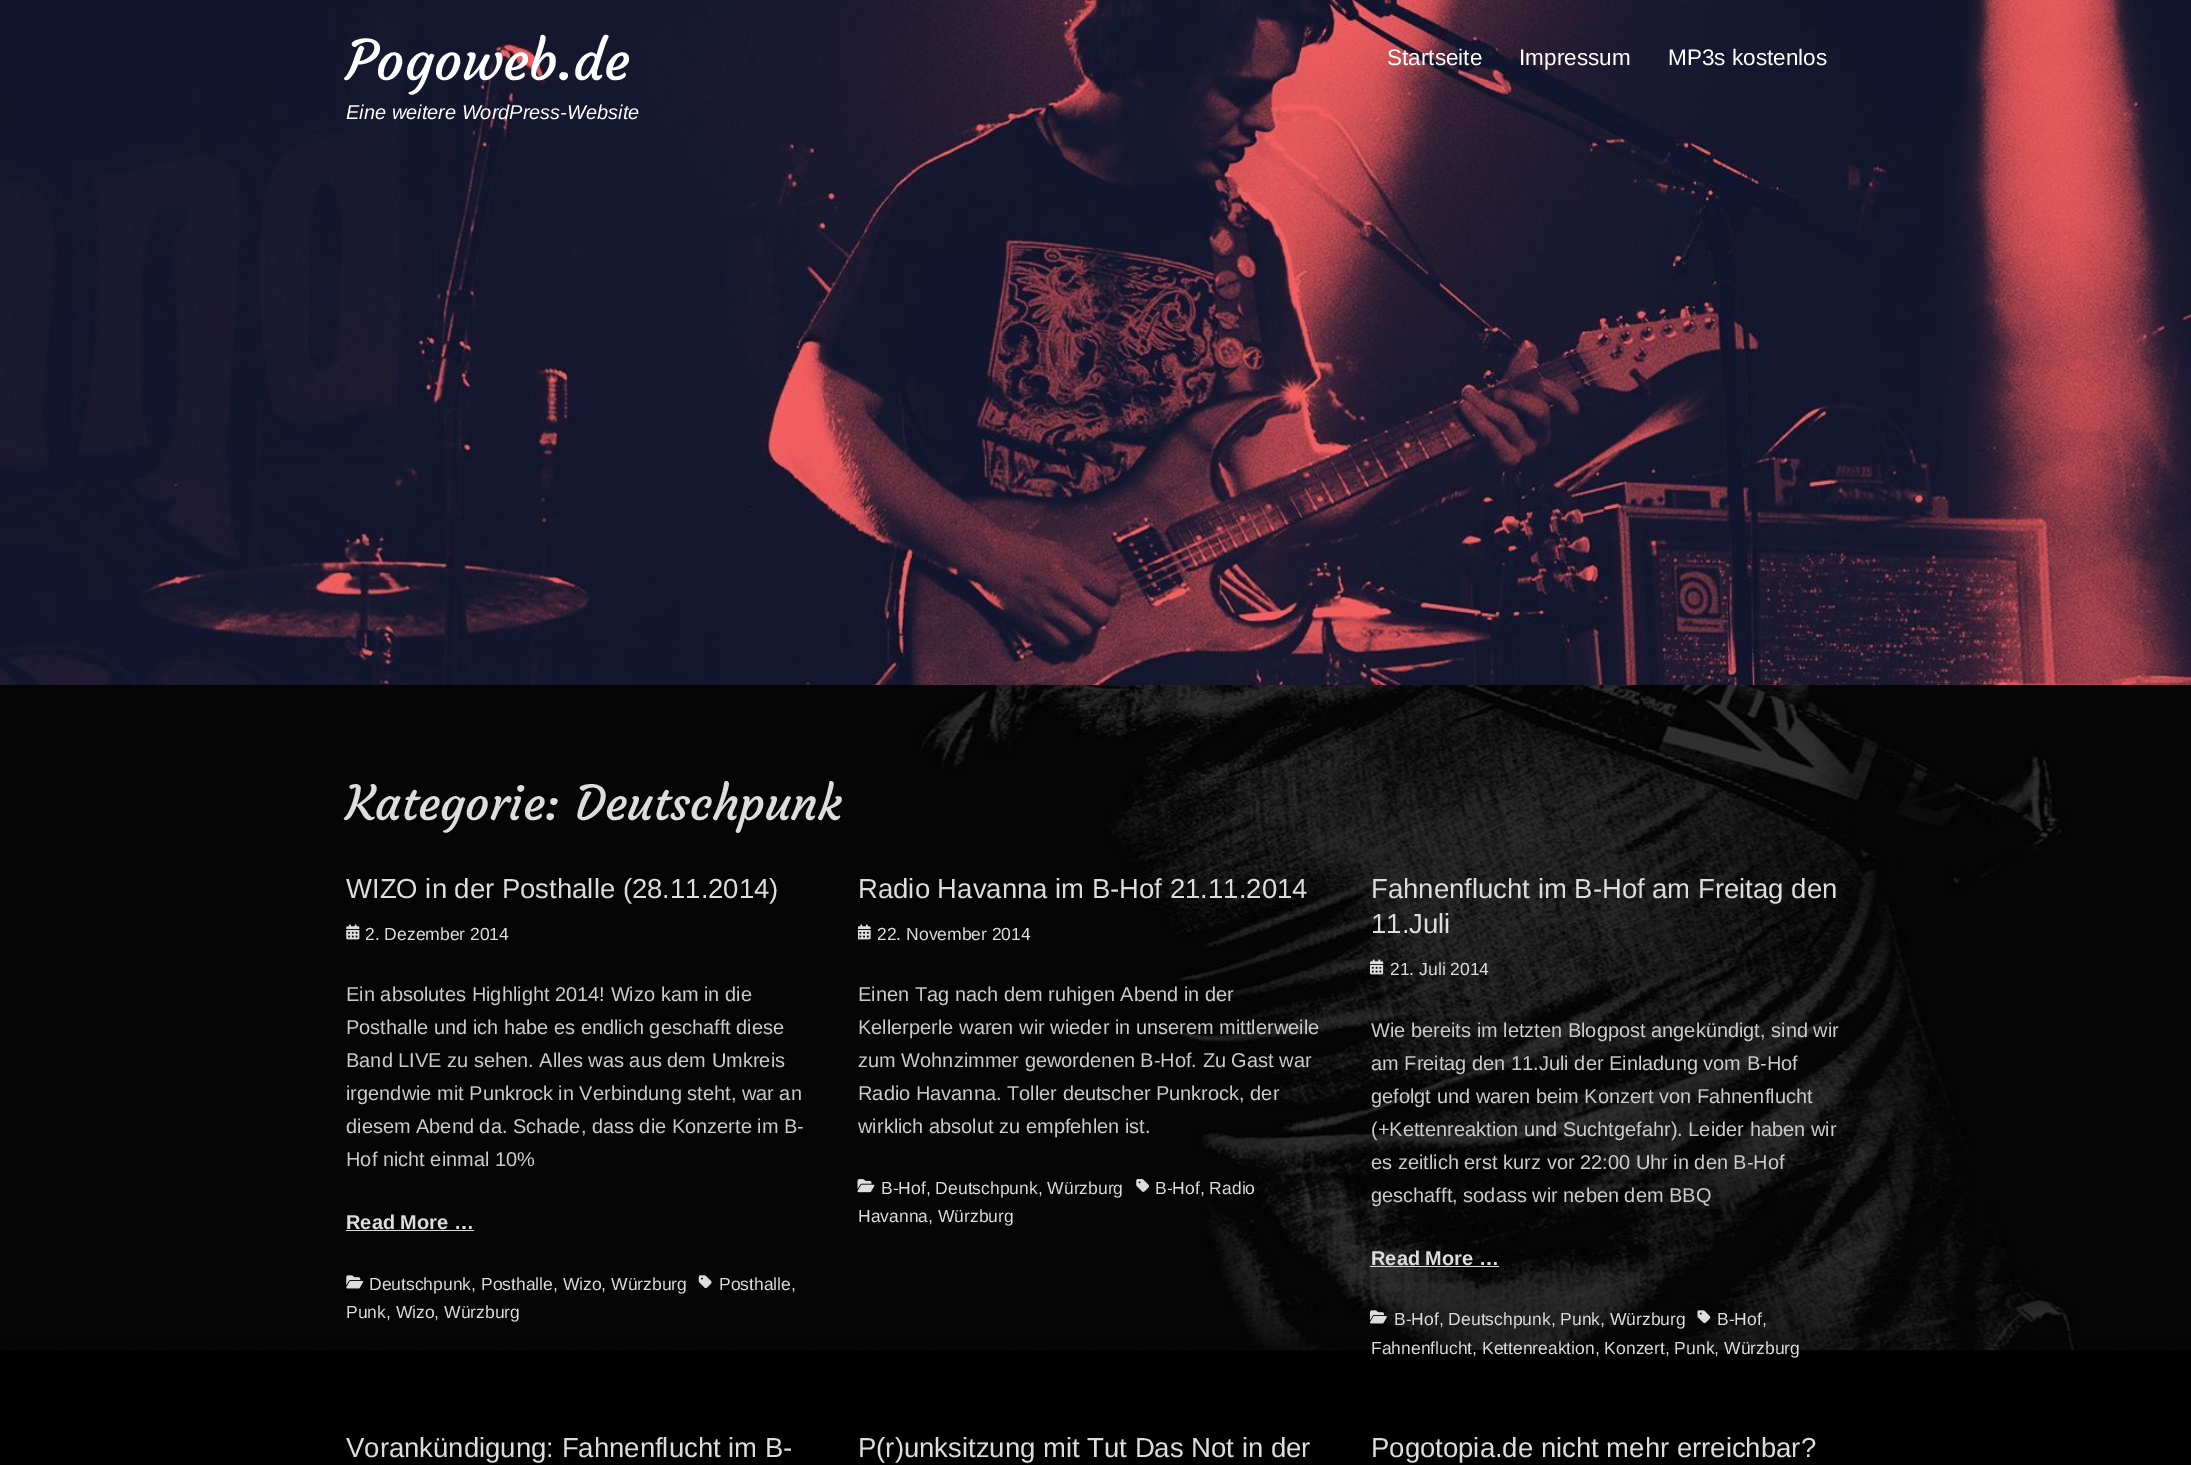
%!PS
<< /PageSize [2191 1465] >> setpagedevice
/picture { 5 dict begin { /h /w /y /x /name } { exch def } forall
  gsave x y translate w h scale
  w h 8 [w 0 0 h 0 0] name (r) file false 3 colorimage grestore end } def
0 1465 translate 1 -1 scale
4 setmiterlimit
0 setgray
0 0 2191 1465 rectfill
(img1.rgb) 0 685 2191 666 picture
(img2.rgb) 0 0 2191 685 picture
/Courgette-Regular [55 0 0 -55 0 0] selectfont
1 setgray
346 80 moveto (Pogoweb.de) show
/LiberationSans-Italic [20 0 0 -20 0 0] selectfont
346 119 moveto (Eine weitere WordPress-Website) show
/LiberationSans-Regular [22.5 0 0 -22.5 0 0] selectfont
1387 65 moveto (Startseite) show
1519 65 moveto (Impressum) show
1668 65 moveto (MP3s kostenlos) show
/Courgette-Regular [47.5 0 0 -47.5 0 0] selectfont
0.867 setgray
346 820 moveto (Kategorie: Deutschpunk) show
/LiberationSans-Regular [27.5 0 0 -27.5 0 0] selectfont
346 898 moveto (WIZO in der Posthalle \(28.11.2014\)) show
(img3.rgb) 346 924 14 16 picture
/LiberationSans-Regular [17.5 0 0 -17.5 0 0] selectfont
365 940 moveto (2. Dezember 2014) show
/LiberationSans-Regular [20 0 0 -20 0 0] selectfont
0.8 setgray
346 1001 moveto (Ein absolutes Highlight 2014! Wizo kam in die) show
346 1034 moveto (Posthalle und ich habe es endlich geschafft diese) show
346 1067 moveto (Band LIVE zu sehen. Alles was aus dem Umkreis) show
346 1100 moveto (irgendwie mit Punkrock in Verbindung steht, war an) show
346 1133 moveto (diesem Abend da. Schade, dass die Konzerte im B-) show
346 1166 moveto (Hof nicht einmal 10%) show
/LiberationSans-Bold [20 0 0 -20 0 0] selectfont
0.867 setgray
346 1229 moveto (Read More …) show
346 1230 128 1 rectfill
(img4.rgb) 698 1275 14 14 picture
/LiberationSans-Regular [17.5 0 0 -17.5 0 0] selectfont
719 1290 moveto (Posthalle,) show
346 1318 moveto (Punk, Wizo, Würzburg) show
(img5.rgb) 346 1275 18 14 picture
369 1290 moveto (Deutschpunk, Posthalle, Wizo, Würzburg) show
/LiberationSans-Regular [27.5 0 0 -27.5 0 0] selectfont
858 898 moveto (Radio Havanna im B-Hof 21.11.2014) show
(img6.rgb) 858 924 13 16 picture
/LiberationSans-Regular [17.5 0 0 -17.5 0 0] selectfont
877 940 moveto (22. November 2014) show
/LiberationSans-Regular [20 0 0 -20 0 0] selectfont
0.8 setgray
858 1001 moveto (Einen Tag nach dem ruhigen Abend in der) show
858 1034 moveto (Kellerperle waren wir wieder in unserem mittlerweile) show
858 1067 moveto (zum Wohnzimmer gewordenen B-Hof. Zu Gast war) show
858 1100 moveto (Radio Havanna. Toller deutscher Punkrock, der) show
858 1133 moveto (wirklich absolut zu empfehlen ist.) show
(img7.rgb) 1136 1179 13 13 picture
/LiberationSans-Regular [17.5 0 0 -17.5 0 0] selectfont
0.867 setgray
1155 1194 moveto (B-Hof, Radio) show
858 1222 moveto (Havanna, Würzburg) show
(img8.rgb) 857 1179 18 14 picture
881 1194 moveto (B-Hof, Deutschpunk, Würzburg) show
/LiberationSans-Regular [27.5 0 0 -27.5 0 0] selectfont
1371 898 moveto (Fahnenflucht im B-Hof am Freitag den) show
1371 933 moveto (11.Juli) show
(img9.rgb) 1370 959 14 16 picture
/LiberationSans-Regular [17.5 0 0 -17.5 0 0] selectfont
1390 975 moveto (21. Juli 2014) show
/LiberationSans-Regular [20 0 0 -20 0 0] selectfont
0.8 setgray
1371 1037 moveto (Wie bereits im letzten Blogpost angekündigt, sind wir) show
1371 1070 moveto (am Freitag den 11.Juli der Einladung vom B-Hof) show
1371 1103 moveto (gefolgt und waren beim Konzert von Fahnenflucht) show
1371 1136 moveto (\(+Kettenreaktion und Suchtgefahr\). Leider haben wir) show
1371 1169 moveto (es zeitlich erst kurz vor 22:00 Uhr in den B-Hof) show
1371 1202 moveto (geschafft, sodass wir neben dem BBQ) show
/LiberationSans-Bold [20 0 0 -20 0 0] selectfont
0.867 setgray
1371 1265 moveto (Read More …) show
1370 1266 129 1 rectfill
(img10.rgb) 1697 1310 14 14 picture
/LiberationSans-Regular [17.5 0 0 -17.5 0 0] selectfont
1717 1325 moveto (B-Hof,) show
1371 1354 moveto (Fahnenflucht, Kettenreaktion, Konzert, Punk, Würzburg) show
(img11.rgb) 1370 1310 17 14 picture
1394 1325 moveto (B-Hof, Deutschpunk, Punk, Würzburg) show
/LiberationSans-Regular [27.5 0 0 -27.5 0 0] selectfont
346 1457 moveto (Vorankündigung: Fahnenflucht im B-) show
858 1457 moveto (P\(r\)unksitzung mit Tut Das Not in der) show
1371 1457 moveto (Pogotopia.de nicht mehr erreichbar?) show
showpage
